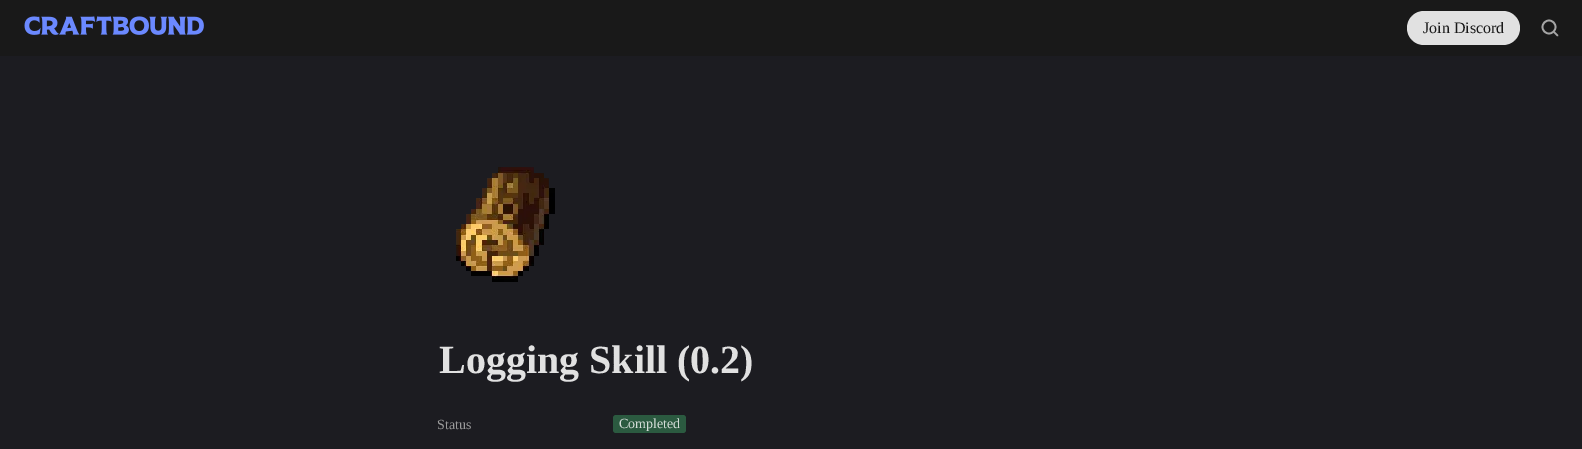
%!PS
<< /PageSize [1582 449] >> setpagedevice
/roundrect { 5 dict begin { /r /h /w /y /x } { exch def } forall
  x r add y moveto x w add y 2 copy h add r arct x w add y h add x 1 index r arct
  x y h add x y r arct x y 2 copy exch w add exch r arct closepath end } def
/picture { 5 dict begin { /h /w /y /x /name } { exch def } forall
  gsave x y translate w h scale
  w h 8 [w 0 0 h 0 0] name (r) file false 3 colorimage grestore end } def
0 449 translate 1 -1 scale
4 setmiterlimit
0.11 0.11 0.129 setrgbcolor
0 0 1582 449 rectfill
0.098 setgray
0 0 1582 56 rectfill
(img1.rgb) 24 16 180 19 picture
0.882 setgray
1407 11 113 34 17 roundrect fill
/LiberationSerif-Regular [16 0 0 -16 0 0] selectfont
0.098 setgray
1423 33 moveto (Join Discord) show
0.647 setgray
1.7 setlinewidth
newpath 1549 27 6.5 0 360 arc closepath stroke
1 setlinecap
1 setlinejoin
newpath 1557.5 35.5 moveto 1554 32 lineto stroke
(img2.rgb) 456 167 99 115 picture
/LiberationSerif-Bold [40 0 0 -40 0 0] selectfont
0.882 setgray
439 373 moveto (Logging Skill \(0.2\)) show
/LiberationSerif-Regular [14 0 0 -14 0 0] selectfont
0.608 setgray
437 429 moveto (Status) show
0.169 0.353 0.251 setrgbcolor
613 415 73 18 3 roundrect fill
0.831 0.867 0.847 setrgbcolor
619 428 moveto (Completed) show
showpage
